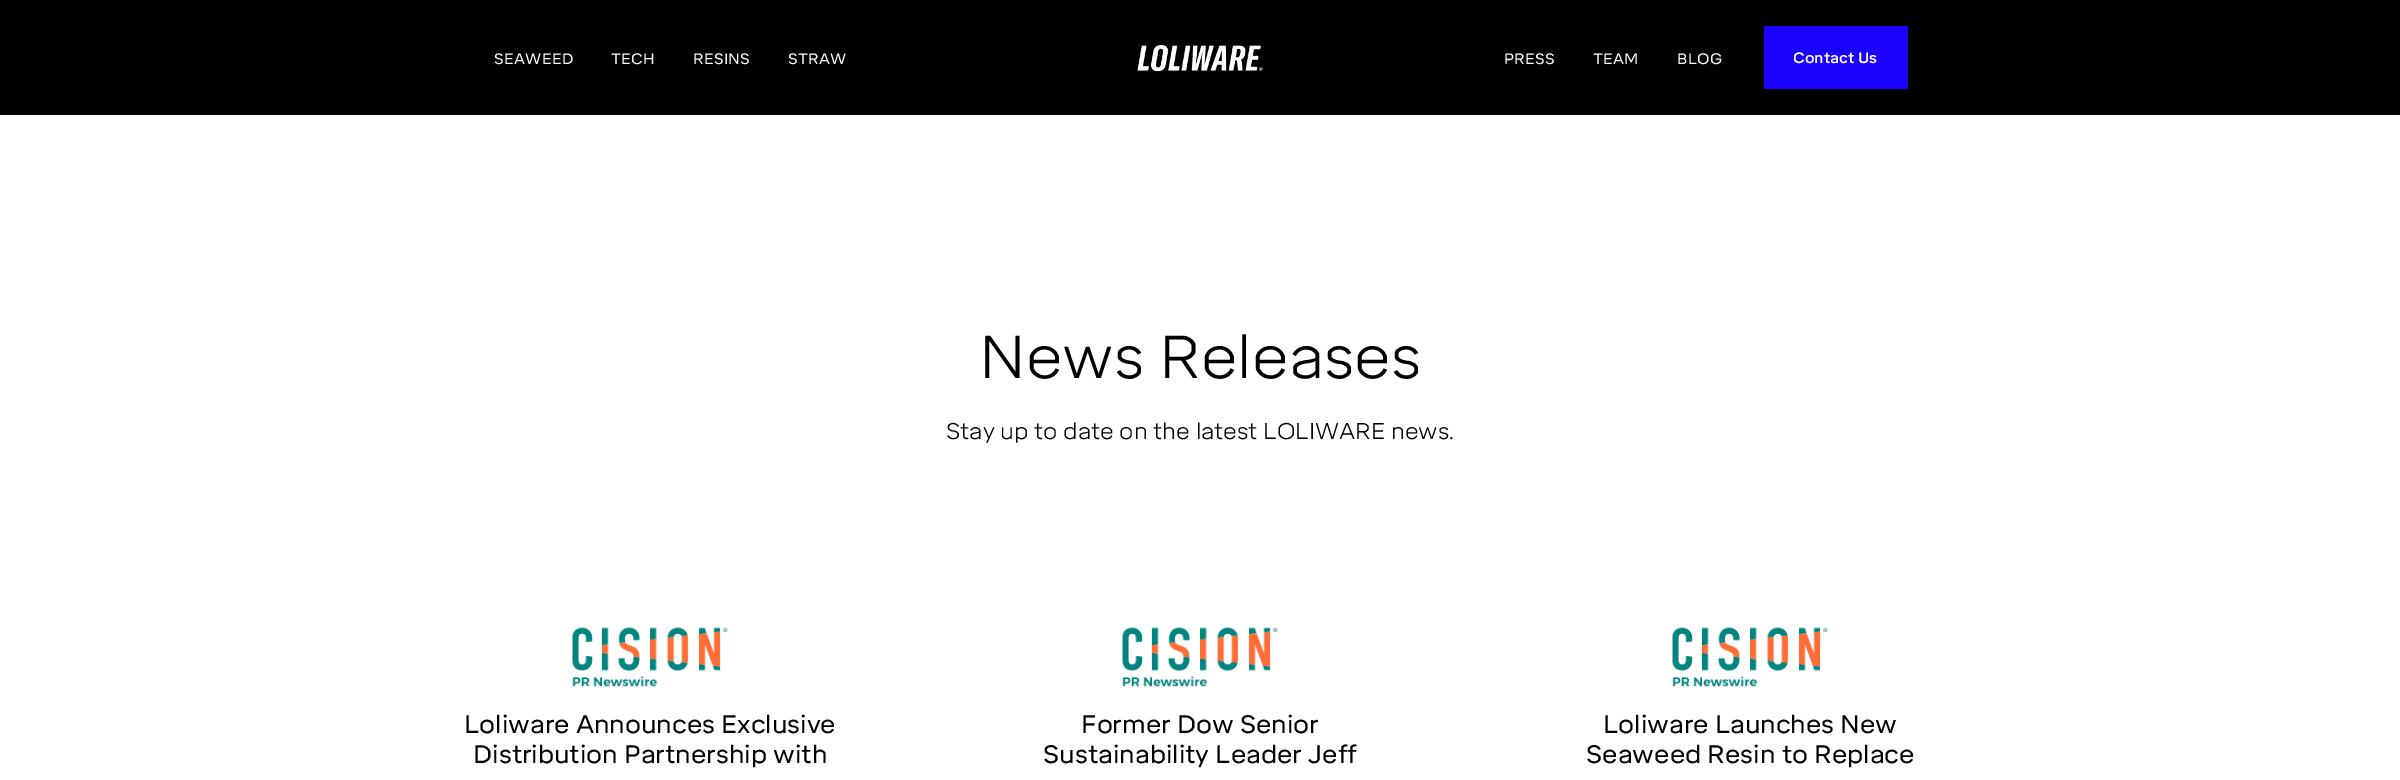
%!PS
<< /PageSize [2400 780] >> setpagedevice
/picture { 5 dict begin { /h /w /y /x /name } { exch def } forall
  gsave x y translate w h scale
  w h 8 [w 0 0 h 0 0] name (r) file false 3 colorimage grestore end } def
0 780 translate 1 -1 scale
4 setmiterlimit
0 setgray
0 0 2400 780 rectfill
(img1.rgb) 1137 45 126 27 picture
/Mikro-Regular [15 0 0 -15 0 0] selectfont
1 setgray
494 64 moveto 0.25 0 (SEAWEED) ashow
611 64 moveto 0.25 0 (TECH) ashow
693 64 moveto 0.25 0 (RESINS) ashow
788 64 moveto 0.25 0 (STRAW) ashow
1504 64 moveto 0.25 0 (PRESS) ashow
1593 64 moveto 0.25 0 (TEAM) ashow
1677 64 moveto 0.25 0 (BLOG) ashow
0.102 0 1 setrgbcolor
1764 26 144 63 rectfill
/Mikro-Medium [15 0 0 -15 0 0] selectfont
1 setgray
1793 63 moveto (Contact Us) show
0 115 2400 665 rectfill
/Mikro-Light [60 0 0 -60 0 0] selectfont
0 setgray
979 378 moveto (News Releases) show
/Mikro-Light [22.5 0 0 -22.5 0 0] selectfont
946 439 moveto (Stay up to date on the latest LOLIWARE news.) show
(img2.rgb) 572 627 156 60 picture
/Mikro-Regular [25 0 0 -25 0 0] selectfont
464 733 moveto (Loliware Announces Exclusive) show
473 763 moveto (Distribution Partnership with) show
(img2.rgb) 1122 627 156 60 picture
1081 733 moveto (Former Dow Senior) show
1043 763 moveto (Sustainability Leader Jeff) show
(img2.rgb) 1672 627 156 60 picture
1603 733 moveto (Loliware Launches New) show
1586 763 moveto (Seaweed Resin to Replace) show
showpage
